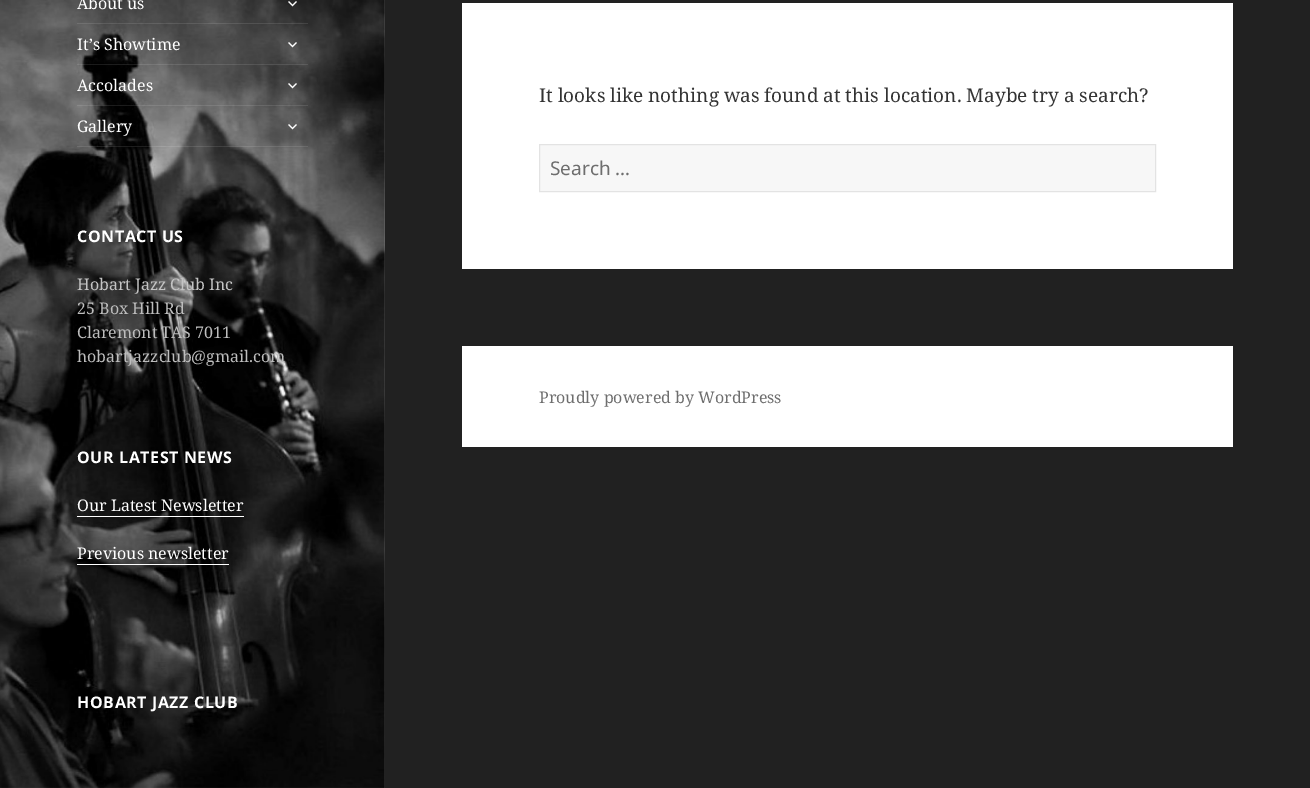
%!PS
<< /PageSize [1310 788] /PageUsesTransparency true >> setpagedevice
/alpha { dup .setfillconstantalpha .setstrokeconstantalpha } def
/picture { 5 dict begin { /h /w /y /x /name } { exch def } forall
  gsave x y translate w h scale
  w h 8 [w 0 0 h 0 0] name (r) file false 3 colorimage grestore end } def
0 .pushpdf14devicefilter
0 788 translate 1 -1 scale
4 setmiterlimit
0.129 setgray
0 0 1310 788 rectfill
(img1.rgb) 0 0 385 788 picture
0.1 alpha
1 setgray
77 146 231 1 rectfill
/NotoSerif-Regular [16 0 0 -16 0 0] selectfont
1 alpha
77 9 moveto (About us) show
(img2.rgb) 288 1 9 6 picture
0.1 alpha
77 23 231 1 rectfill
1 alpha
77 50 moveto (It’s Showtime) show
(img3.rgb) 288 42 9 6 picture
0.1 alpha
77 64 231 1 rectfill
1 alpha
77 91 moveto (Accolades) show
(img4.rgb) 288 83 9 6 picture
0.1 alpha
77 105 231 1 rectfill
1 alpha
77 132 moveto (Gallery) show
(img5.rgb) 288 124 9 6 picture
/NotoSans-Bold [16 0 0 -16 0 0] selectfont
77 242 moveto 0.6 0 (CONTACT US) ashow
/NotoSerif-Regular [16 0 0 -16 0 0] selectfont
0.769 setgray
77 290 moveto (Hobart Jazz Club Inc) show
0.741 setgray
77 314 moveto (25 Box Hill Rd) show
77 338 moveto (Claremont TAS 7011) show
77 362 moveto (hobartjazzclub@gmail.com) show
/NotoSans-Bold [16 0 0 -16 0 0] selectfont
1 setgray
77 463 moveto 0.6 0 (OUR LATEST NEWS) ashow
/NotoSerif-Regular [16 0 0 -16 0 0] selectfont
77 511 moveto (Our Latest Newsletter) show
77 516 167 1 rectfill
77 559 moveto (Previous newsletter) show
77 564 152 1 rectfill
/NotoSans-Bold [16 0 0 -16 0 0] selectfont
77 708 moveto 0.6 0 (HOBART JAZZ CLUB) ashow
462 3 771 266 rectfill
/NotoSerif-Regular [19 0 0 -19 0 0] selectfont
0.2 setgray
539 102 moveto (It looks like nothing was found at this location. Maybe try a search?) show
0.969 setgray
newpath 539.5 144.5 moveto 1155.5 144.5 lineto 1155.5 191.5 lineto 539.5 191.5 lineto closepath gsave fill grestore
0.89 setgray
stroke
/NotoSans-Regular [19 0 0 -19 0 0] selectfont
0.431 setgray
550 175 moveto (Search …) show
1 setgray
462 346 771 101 rectfill
/NotoSerif-Regular [16 0 0 -16 0 0] selectfont
0.431 setgray
539 403 moveto (Proudly powered by WordPress) show
.poppdf14devicefilter showpage
